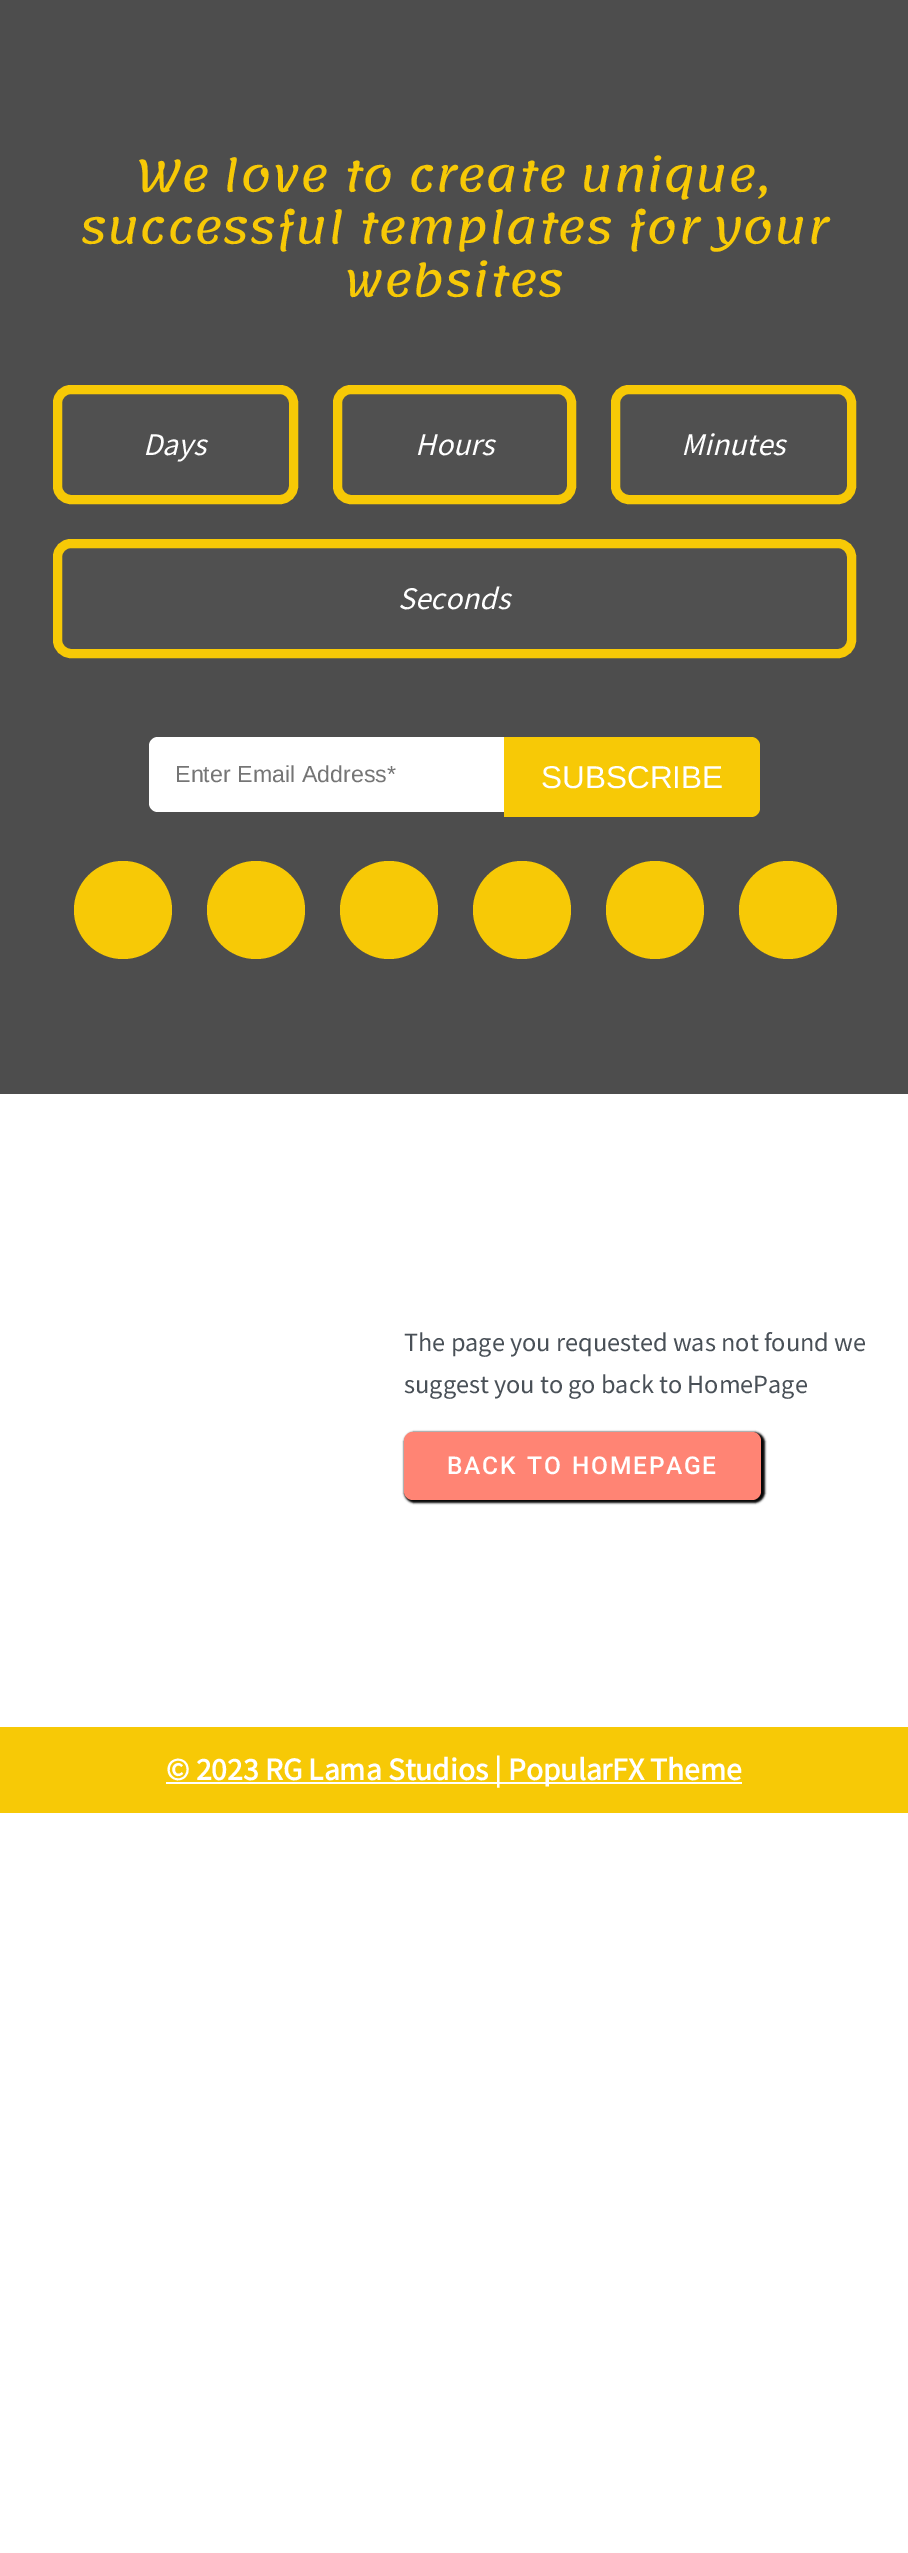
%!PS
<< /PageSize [908 2553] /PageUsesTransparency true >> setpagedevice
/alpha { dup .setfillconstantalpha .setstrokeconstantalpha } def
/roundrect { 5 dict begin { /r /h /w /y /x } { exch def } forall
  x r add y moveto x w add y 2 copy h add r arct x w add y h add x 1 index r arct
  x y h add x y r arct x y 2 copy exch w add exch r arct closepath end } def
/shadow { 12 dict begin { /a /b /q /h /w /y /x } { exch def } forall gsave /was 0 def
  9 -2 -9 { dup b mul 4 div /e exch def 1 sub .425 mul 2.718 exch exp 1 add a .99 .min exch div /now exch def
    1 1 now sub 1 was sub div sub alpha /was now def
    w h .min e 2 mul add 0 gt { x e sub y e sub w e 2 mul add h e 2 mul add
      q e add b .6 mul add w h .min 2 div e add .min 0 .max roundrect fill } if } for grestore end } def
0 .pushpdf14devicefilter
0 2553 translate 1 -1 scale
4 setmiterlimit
1 setgray
0 0 908 2553 rectfill
0.302 setgray
0 0 908 1094 rectfill
/Lemonada-Regular [43.75 0 0 -43.75 0 0] selectfont
0.969 0.788 0.024 setrgbcolor
138 191 moveto (We love to create unique,) show
80 243 moveto (successful templates for your) show
344 296 moveto (websites) show
0.314 setgray
57.5 389.5 236 110 13.5 roundrect gsave fill grestore
0.969 0.788 0.024 setrgbcolor
9 setlinewidth
stroke
/SourceSansPro-Italic [31.5 0 0 -31.5 0 0] selectfont
1 setgray
143 455 moveto (Days) show
0.314 setgray
337.5 389.5 234 110 13.5 roundrect gsave fill grestore
0.969 0.788 0.024 setrgbcolor
stroke
1 setgray
415 455 moveto (Hours) show
0.314 setgray
615.5 389.5 236 110 13.5 roundrect gsave fill grestore
0.969 0.788 0.024 setrgbcolor
stroke
1 setgray
681 455 moveto (Minutes) show
0.314 setgray
57.5 543.5 794 110 13.5 roundrect gsave fill grestore
0.969 0.788 0.024 setrgbcolor
stroke
1 setgray
398 609 moveto (Seconds) show
newpath 158 737 moveto 557 737 lineto 557 812 lineto 158 812 lineto 153 812 149 808 149 803 curveto 149 746 lineto 149 741 153 737 158 737 curveto closepath fill
/LiberationSans-Regular [23.25 0 0 -23.25 0 0] selectfont
0.459 setgray
175 782 moveto (Enter Email Address*) show
0.969 0.788 0.024 setrgbcolor
newpath 504 737 moveto 751 737 lineto 756 737 760 741 760 746 curveto 760 808 lineto 760 813 756 817 751 817 curveto 504 817 lineto closepath fill
/LiberationSans-Regular [31.5 0 0 -31.5 0 0] selectfont
1 setgray
541 788 moveto (SUBSCRIBE) show
0.969 0.788 0.024 setrgbcolor
newpath 123 910 49 0 360 arc closepath fill
newpath 256 910 49 0 360 arc closepath fill
newpath 389 910 49 0 360 arc closepath fill
newpath 522 910 49 0 360 arc closepath fill
newpath 655 910 49 0 360 arc closepath fill
newpath 788 910 49 0 360 arc closepath fill
/SourceSansPro-Regular [26.25 0 0 -26.25 0 0] selectfont
0.286 0.314 0.341 setrgbcolor
404 1351 moveto (The page you requested was not found we) show
404 1393 moveto (suggest you to go back to HomePage) show
0 setgray
404 1432 361 71 11 1 1 shadow
1 0.518 0.455 setrgbcolor
404 1432 357 68 9 roundrect fill
/Roboto-Medium [24.5 0 0 -24.5 0 0] selectfont
1 setgray
447 1474 moveto 2 0 32 1.75 0 (BACK TO HOMEPAGE) awidthshow
0.969 0.788 0.024 setrgbcolor
0 1727 908 86 rectfill
1 setgray
166 1782 576 2 rectfill
/SourceSansPro-Bold [31.5 0 0 -31.5 0 0] selectfont
166 1780 moveto (© 2023 RG Lama Studios | PopularFX Theme) show
.poppdf14devicefilter showpage
